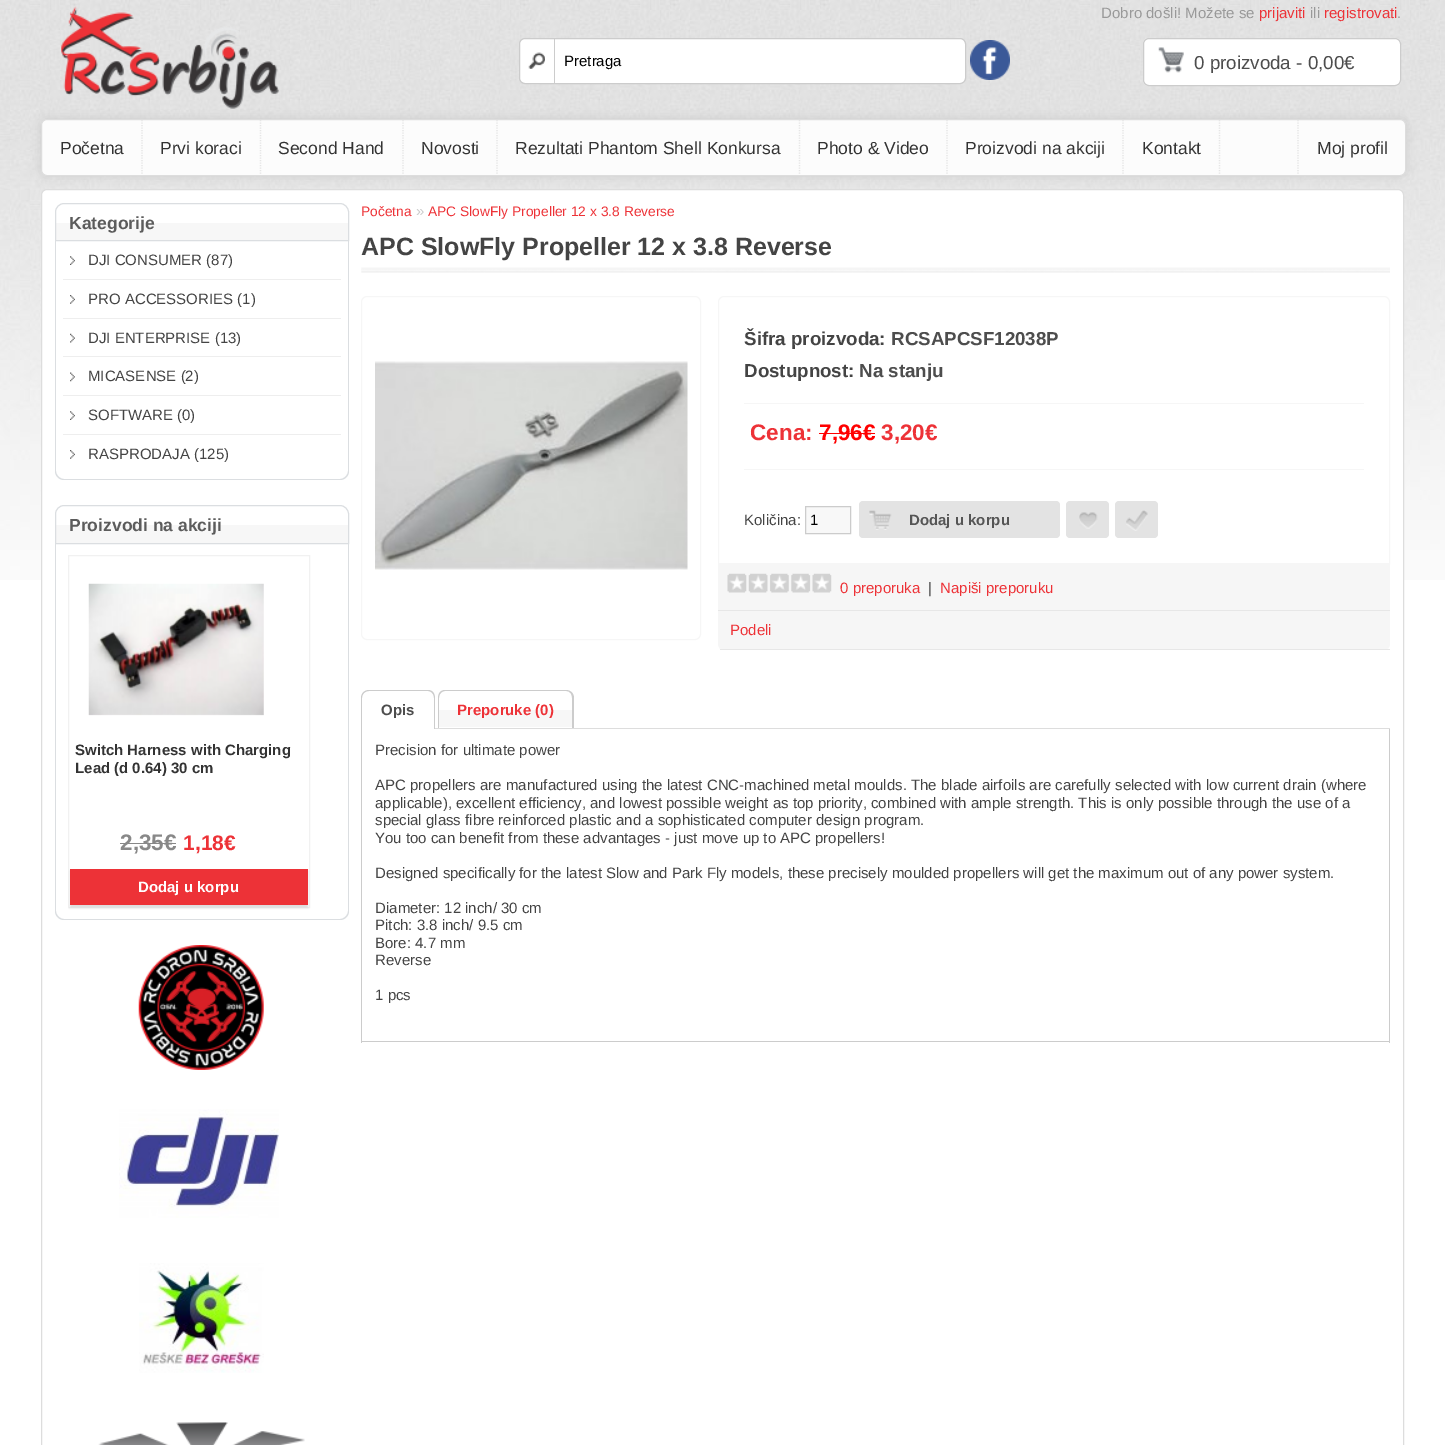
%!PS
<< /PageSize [1445 1445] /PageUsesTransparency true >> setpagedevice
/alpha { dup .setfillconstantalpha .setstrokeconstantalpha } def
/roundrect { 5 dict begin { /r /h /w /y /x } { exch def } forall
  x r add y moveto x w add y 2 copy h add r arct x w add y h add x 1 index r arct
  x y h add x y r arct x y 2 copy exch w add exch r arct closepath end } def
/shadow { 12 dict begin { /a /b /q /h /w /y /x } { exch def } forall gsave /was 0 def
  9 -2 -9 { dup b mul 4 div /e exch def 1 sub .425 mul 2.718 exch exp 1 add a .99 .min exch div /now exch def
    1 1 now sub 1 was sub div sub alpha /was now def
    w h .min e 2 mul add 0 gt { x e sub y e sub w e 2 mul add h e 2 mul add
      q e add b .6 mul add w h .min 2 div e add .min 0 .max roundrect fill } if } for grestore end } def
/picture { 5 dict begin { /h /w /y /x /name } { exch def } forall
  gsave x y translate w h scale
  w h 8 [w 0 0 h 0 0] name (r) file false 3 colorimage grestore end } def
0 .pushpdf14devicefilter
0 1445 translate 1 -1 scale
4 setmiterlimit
1 setgray
0 0 1445 1445 rectfill
(img1.rgb) 0 0 1445 580 picture
41.5 189.5 1362 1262 5.5 roundrect gsave fill grestore
0.867 setgray
stroke
0.8 setgray
41 119 1365 57 6 5 1 shadow
(img2.rgb) 61 6 218 103 picture
/LiberationSans-Regular [15 0 0 -15 0 0] selectfont
0.6 setgray
1101 18 moveto (Dobro došli! Možete se) show
0.929 0.196 0.216 setrgbcolor
1259 18 moveto (prijaviti) show
0.6 setgray
1310 18 moveto (ili) show
0.929 0.196 0.216 setrgbcolor
1324 18 moveto (registrovati) show
0.6 setgray
1397 18 moveto (.) show
1 setgray
519.5 38.5 446 45 5.5 roundrect gsave fill grestore
0.8 setgray
stroke
(img3.rgb) 528 52 17 17 picture
554 38 1 45 rectfill
0 setgray
564 66 moveto (Pretraga) show
(img4.rgb) 970 40 40 40 picture
1 setgray
1143 38 258 48 6 roundrect fill
(img5.rgb) 1158 47 26 26 picture
0.8 setgray
1143.5 38.5 257 47 5.5 roundrect stroke
/LiberationSans-Regular [18.75 0 0 -18.75 0 0] selectfont
0.302 setgray
1194 69 moveto (0 proizvoda - 0,00€) show
0.988 setgray
41.5 119.5 1364 56 5.5 roundrect gsave fill grestore
0.867 setgray
stroke
0.898 setgray
1.2 setlinewidth
[1.25 1.25] 0 setdash
newpath 142 120 moveto 142 175 lineto stroke
/LiberationSans-Regular [17.5 0 0 -17.5 0 0] selectfont
0.2 setgray
60 154 moveto (Početna) show
0.898 setgray
newpath 260.5 120 moveto 260.5 175 lineto stroke
0.2 setgray
160 154 moveto (Prvi koraci) show
0.898 setgray
newpath 403 120 moveto 403 175 lineto stroke
0.2 setgray
278 154 moveto (Second Hand) show
0.898 setgray
newpath 497 120 moveto 497 175 lineto stroke
0.2 setgray
421 154 moveto (Novosti) show
0.898 setgray
newpath 799.5 120 moveto 799.5 175 lineto stroke
0.2 setgray
515 154 moveto (Rezultati Phantom Shell Konkursa) show
0.898 setgray
newpath 947 120 moveto 947 175 lineto stroke
0.2 setgray
817 154 moveto (Photo & Video) show
0.898 setgray
newpath 1123 120 moveto 1123 175 lineto stroke
0.2 setgray
965 154 moveto (Proizvodi na akciji) show
0.898 setgray
newpath 1219.5 120 moveto 1219.5 175 lineto stroke
0.2 setgray
1142 154 moveto (Kontakt) show
0.898 setgray
newpath 1298 120 moveto 1298 175 lineto stroke
0.2 setgray
1317 154 moveto (Moj profil) show
0.969 setgray
56 223 292 17 rectfill
0.859 0.871 0.882 setrgbcolor
1 setlinewidth
[] 0 setdash
newpath 64 203.5 moveto 340 203.5 lineto 344.5 203.5 348.5 207.5 348.5 212 curveto 348.5 240.5 lineto 55.5 240.5 lineto 55.5 212 lineto 55.5 207.5 59.5 203.5 64 203.5 curveto closepath stroke
/LiberationSans-Bold [17.5 0 0 -17.5 0 0] selectfont
0.361 setgray
69 229 moveto (Kategorije) show
0.859 0.871 0.882 setrgbcolor
newpath 55 241 moveto 349 241 lineto 349 471 lineto 349 476 345 480 340 480 curveto 64 480 lineto 59 480 55 476 55 471 curveto closepath 56 241 moveto 348 241 lineto 348 471 lineto 348 475 344 479 340 479 curveto 64 479 lineto 60 479 56 475 56 471 curveto closepath eofill
(img6.rgb) 70 256 5 9 picture
/LiberationSans-Regular [15 0 0 -15 0 0] selectfont
0.267 setgray
88 265 moveto (DJI CONSUMER \(87\)) show
(img7.rgb) 70 295 5 9 picture
0.933 setgray
63 279 278 1 rectfill
0.267 setgray
88 304 moveto (PRO ACCESSORIES \(1\)) show
(img8.rgb) 70 333 5 10 picture
0.933 setgray
63 318 278 1 rectfill
0.267 setgray
88 343 moveto (DJI ENTERPRISE \(13\)) show
(img9.rgb) 70 372 5 10 picture
0.933 setgray
63 356 278 1 rectfill
0.267 setgray
88 381 moveto (MICASENSE \(2\)) show
(img10.rgb) 70 411 5 9 picture
0.933 setgray
63 395 278 1 rectfill
0.267 setgray
88 420 moveto (SOFTWARE \(0\)) show
(img7.rgb) 70 450 5 9 picture
0.933 setgray
63 434 278 1 rectfill
0.267 setgray
88 459 moveto (RASPRODAJA \(125\)) show
0.969 setgray
56 525 292 18 rectfill
0.859 0.871 0.882 setrgbcolor
newpath 64 505.5 moveto 340 505.5 lineto 344.5 505.5 348.5 509.5 348.5 514 curveto 348.5 543.5 lineto 55.5 543.5 lineto 55.5 514 lineto 55.5 509.5 59.5 505.5 64 505.5 curveto closepath stroke
/LiberationSans-Bold [17.5 0 0 -17.5 0 0] selectfont
0.361 setgray
69 531 moveto (Proizvodi na akciji) show
0.859 0.871 0.882 setrgbcolor
newpath 55 544 moveto 349 544 lineto 349 911 lineto 349 916 345 920 340 920 curveto 64 920 lineto 59 920 55 916 55 911 curveto closepath 56 544 moveto 348 544 lineto 348 911 lineto 348 915 344 919 340 919 curveto 64 919 lineto 60 919 56 915 56 911 curveto closepath eofill
0.945 setgray
68.5 555.5 241 352 rectstroke
(img11.rgb) 88 583 176 133 picture
/LiberationSans-Bold [15 0 0 -15 0 0] selectfont
0.2 setgray
75 755 moveto (Switch Harness with Charging) show
75 773 moveto (Lead \(d 0.64\) 30 cm) show
/LiberationSans-Bold [22.5 0 0 -22.5 0 0] selectfont
0.533 setgray
120 850 moveto (2,35€) show
120 843 56 1 rectfill
/LiberationSans-Bold [21 0 0 -21 0 0] selectfont
0.929 0.196 0.216 setrgbcolor
183 850 moveto (1,18€) show
0.867 setgray
70 871 238 37 0 1 1 shadow
0.929 0.196 0.216 setrgbcolor
70 869 238 36 rectfill
/LiberationSans-Bold [15 0 0 -15 0 0] selectfont
1 setgray
138 892 moveto (Dodaj u korpu) show
(img12.rgb) 138 945 126 125 picture
(img13.rgb) 119 1109 160 109 picture
(img14.rgb) 139 1263 125 110 picture
(img15.rgb) 98 1422 207 23 picture
/LiberationSans-Regular [13.75 0 0 -13.75 0 0] selectfont
0.929 0.196 0.216 setrgbcolor
361 216 moveto (Početna) show
/LiberationSans-Regular [15 0 0 -15 0 0] selectfont
0.8 setgray
416 216 moveto (») show
/LiberationSans-Regular [13.75 0 0 -13.75 0 0] selectfont
0.929 0.196 0.216 setrgbcolor
428 216 moveto (APC SlowFly Propeller 12 x 3.8 Reverse) show
(img16.rgb) 361 267 1029 6 picture
/LiberationSans-Bold [25 0 0 -25 0 0] selectfont
0.267 setgray
361 255 moveto (APC SlowFly Propeller 12 x 3.8 Reverse) show
0.965 setgray
361.5 296.5 339 343 5.5 roundrect stroke
(img17.rgb) 375 361 313 209 picture
newpath 724 296.5 moveto 1384 296.5 lineto 1387 296.5 1389.5 299 1389.5 302 curveto 1389.5 563.5 lineto 718.5 563.5 lineto 718.5 302 lineto 718.5 299 721 296.5 724 296.5 curveto closepath stroke
744 403 620 1 rectfill
/LiberationSans-Bold [18.75 0 0 -18.75 0 0] selectfont
0.267 setgray
744 345 moveto (Šifra proizvoda:) show
0.302 setgray
891 345 moveto (RCSAPCSF12038P) show
0.267 setgray
744 377 moveto (Dostupnost:) show
0.302 setgray
859 377 moveto (Na stanju) show
0.965 setgray
744 469 620 1 rectfill
/LiberationSans-Bold [22.5 0 0 -22.5 0 0] selectfont
0.929 0.196 0.216 setrgbcolor
750 440 moveto (Cena:) show
1 0 0 setrgbcolor
819 440 moveto (7,96€) show
819 433 56 1 rectfill
0.929 0.196 0.216 setrgbcolor
881 440 moveto (3,20€) show
/LiberationSans-Regular [15 0 0 -15 0 0] selectfont
0.267 setgray
744 525 moveto (Količina:) show
0.973 setgray
newpath 805.5 506.5 moveto 850.5 506.5 lineto 850.5 533.5 lineto 805.5 533.5 lineto closepath gsave fill grestore
0.8 setgray
stroke
0 setgray
810 525 moveto (1) show
0.89 setgray
859 501 201 37 4 roundrect fill
(img18.rgb) 869 510 23 20 picture
/LiberationSans-Bold [15 0 0 -15 0 0] selectfont
0.333 setgray
909 525 moveto (Dodaj u korpu) show
0.89 setgray
1066 501 43 37 4 roundrect fill
(img19.rgb) 1079 512 19 17 picture
1115 501 43 37 4 roundrect fill
(img20.rgb) 1126 510 22 21 picture
0.965 setgray
newpath 718 564 moveto 1390 564 lineto 1390 644 lineto 1390 647.5 1387.5 650 1384 650 curveto 724 650 lineto 720.5 650 718 647.5 718 644 curveto closepath fill
0.906 setgray
718 610 672 1 rectfill
(img21.rgb) 727 573 105 20 picture
/LiberationSans-Regular [15 0 0 -15 0 0] selectfont
0.929 0.196 0.216 setrgbcolor
840 593 moveto (0 preporuka) show
0.267 setgray
928 593 moveto (|) show
0.929 0.196 0.216 setrgbcolor
940 593 moveto (Napiši preporuku) show
0.906 setgray
720 649 670 1 rectfill
0.929 0.196 0.216 setrgbcolor
730 635 moveto (Podeli) show
0.867 setgray
435 728 955 1 rectfill
0.8 setgray
newpath 369 690 moveto 428 690 lineto 432 690 435 693 435 698 curveto 435 729 lineto 361 729 lineto 361 698 lineto 361 693 365 690 369 690 curveto closepath 369 691 moveto 428 691 lineto 431 691 434 694 434 698 curveto 434 729 lineto 362 729 lineto 362 698 lineto 362 694 365 691 369 691 curveto closepath eofill
/LiberationSans-Bold [15 0 0 -15 0 0] selectfont
0.302 setgray
381 715 moveto (Opis) show
0.969 setgray
439 710 133 17 rectfill
0.8 setgray
newpath 445 690 moveto 566 690 lineto 570 690 574 693 574 698 curveto 574 728 lineto 438 728 lineto 438 698 lineto 438 693 441 690 445 690 curveto closepath 445 691 moveto 566 691 lineto 570 691 572 694 572 698 curveto 572 728 lineto 439 728 lineto 439 698 lineto 439 694 442 691 445 691 curveto closepath eofill
0.929 0.196 0.216 setrgbcolor
457 715 moveto (Preporuke \(0\)) show
0.8 setgray
1389 729 1 314 rectfill
361 1041 1029 1 rectfill
361 729 1 314 rectfill
/LiberationSans-Regular [15 0 0 -15 0 0] selectfont
0.267 setgray
375 755 moveto (Precision for ultimate power) show
375 790 moveto (APC propellers are manufactured using the latest CNC-machined metal moulds. The blade airfoils are carefully selected with low current drain \(where) show
375 808 moveto (applicable\), excellent efficiency, and lowest possible weight as top priority, combined with ample strength. This is only possible through the use of a) show
375 825 moveto (special glass fibre reinforced plastic and a sophisticated computer design program.) show
375 843 moveto (You too can benefit from these advantages - just move up to APC propellers!) show
375 878 moveto (Designed specifically for the latest Slow and Park Fly models, these precisely moulded propellers will get the maximum out of any power system.) show
375 913 moveto (Diameter: 12 inch/ 30 cm) show
375 930 moveto (Pitch: 3.8 inch/ 9.5 cm) show
375 948 moveto (Bore: 4.7 mm) show
375 965 moveto (Reverse) show
375 1000 moveto (1 pcs) show
.poppdf14devicefilter showpage
